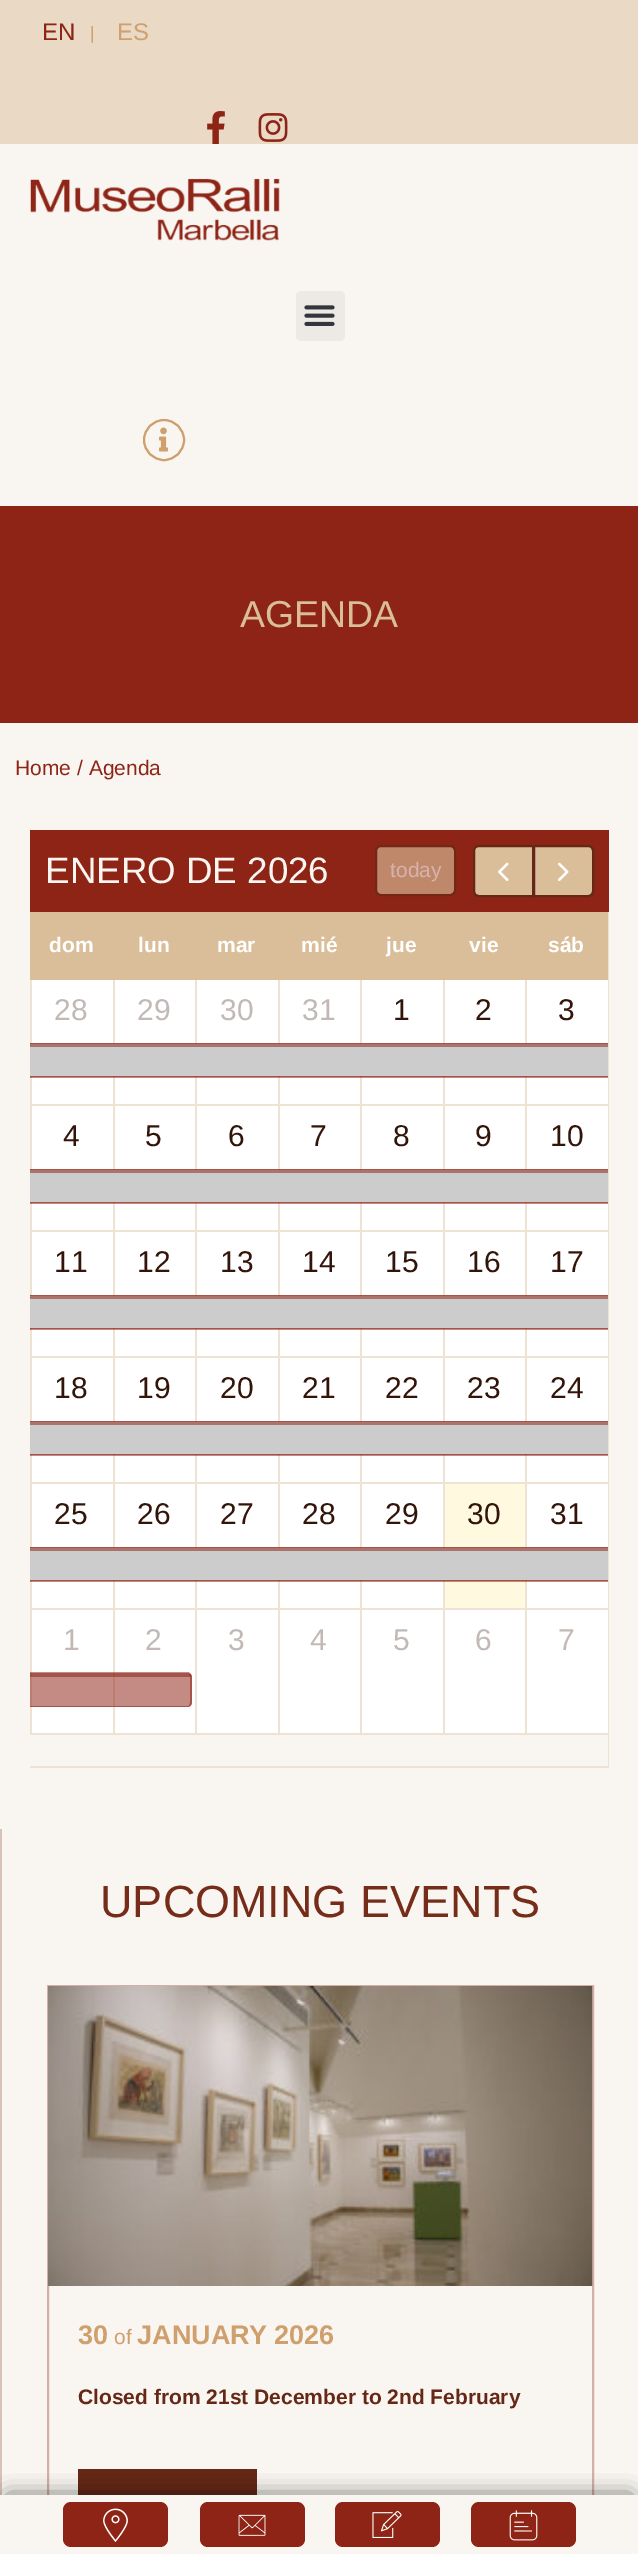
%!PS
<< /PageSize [638 2554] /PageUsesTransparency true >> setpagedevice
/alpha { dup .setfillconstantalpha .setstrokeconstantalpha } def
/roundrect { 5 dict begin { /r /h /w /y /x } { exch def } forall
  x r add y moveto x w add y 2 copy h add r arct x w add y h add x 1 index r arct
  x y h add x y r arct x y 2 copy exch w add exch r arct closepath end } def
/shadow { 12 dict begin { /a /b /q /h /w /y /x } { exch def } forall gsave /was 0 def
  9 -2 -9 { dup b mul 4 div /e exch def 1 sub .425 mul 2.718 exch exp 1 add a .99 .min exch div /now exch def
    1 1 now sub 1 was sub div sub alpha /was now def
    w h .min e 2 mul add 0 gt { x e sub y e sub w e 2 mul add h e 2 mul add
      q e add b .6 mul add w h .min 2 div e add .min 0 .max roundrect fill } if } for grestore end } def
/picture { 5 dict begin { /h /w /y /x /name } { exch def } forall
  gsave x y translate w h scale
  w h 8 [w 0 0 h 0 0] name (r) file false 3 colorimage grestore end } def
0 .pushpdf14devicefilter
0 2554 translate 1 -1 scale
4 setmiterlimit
0.976 0.961 0.941 setrgbcolor
0 0 638 2554 rectfill
0.914 0.851 0.773 setrgbcolor
0 0 638 144 rectfill
/LiberationSans-Regular [24 0 0 -24 0 0] selectfont
0.553 0.141 0.086 setrgbcolor
42 40 moveto (EN) show
/LiberationSans-Regular [18 0 0 -18 0 0] selectfont
0.812 0.624 0.431 setrgbcolor
90 39 moveto (|) show
/LiberationSans-Regular [24 0 0 -24 0 0] selectfont
117 40 moveto (ES) show
(img1.rgb) 207 111 18 33 picture
(img2.rgb) 258 113 30 29 picture
(img3.rgb) 30 178 250 63 picture
0.929 0.914 0.894 setrgbcolor
296 291 49 50 5 roundrect fill
(img4.rgb) 304 305 31 21 picture
0.812 0.624 0.431 setrgbcolor
2 setlinewidth
newpath 164 440 20 0 360 arc closepath stroke
(img5.rgb) 159 427 9 25 picture
0.553 0.141 0.086 setrgbcolor
0 506 638 217 rectfill
/LiberationSans-Regular [37.5 0 0 -37.5 0 0] selectfont
0.855 0.745 0.6 setrgbcolor
240 627 moveto (AGENDA) show
/LiberationSans-Regular [21 0 0 -21 0 0] selectfont
0.553 0.141 0.086 setrgbcolor
15 775 moveto (Home / Agenda) show
30 830 579 82 rectfill
/LiberationSans-Regular [36.75 0 0 -36.75 0 0] selectfont
0.976 0.961 0.941 setrgbcolor
45 883 moveto (ENERO DE 2026) show
0.749 0.533 0.42 setrgbcolor
376 846 79 49 5 roundrect gsave fill grestore
0.451 0.153 0.09 setrgbcolor
stroke
/LiberationSans-Regular [21 0 0 -21 0 0] selectfont
0.843 0.698 0.678 setrgbcolor
390 877 moveto (today) show
0.855 0.745 0.6 setrgbcolor
newpath 479 846 moveto 533 846 lineto 533 896 lineto 479 896 lineto 476 896 474 894 474 891 curveto 474 851 lineto 474 848 476 846 479 846 curveto closepath gsave fill grestore
0.396 0.157 0.09 setrgbcolor
stroke
(img6.rgb) 498 862 11 19 picture
0.855 0.745 0.6 setrgbcolor
newpath 534 846 moveto 588 846 lineto 591 846 593 848 593 851 curveto 593 891 lineto 593 894 591 896 588 896 curveto 534 896 lineto closepath gsave fill grestore
0.396 0.157 0.09 setrgbcolor
stroke
(img7.rgb) 558 862 11 19 picture
0.855 0.745 0.6 setrgbcolor
30 912 578 68 rectfill
0.933 0.886 0.827 setrgbcolor
608 912 1 855 rectfill
/LiberationSans-Bold [21 0 0 -21 0 0] selectfont
1 setgray
49 952 moveto (dom) show
138 952 moveto (lun) show
217 952 moveto (mar) show
301 952 moveto (mié) show
386 952 moveto (jue) show
469 952 moveto (vie) show
548 952 moveto (sáb) show
0.933 0.886 0.827 setrgbcolor
30 1766 579 2 rectfill
1 setgray
32 980 576 753 rectfill
0.765 0.545 0.518 setrgbcolor
30 1581 578 1 rectfill
0.651 0.329 0.29 setrgbcolor
30 1580 578 1 rectfill
30 1547 578 1 rectfill
0.765 0.545 0.518 setrgbcolor
30 1455 578 1 rectfill
0.651 0.329 0.29 setrgbcolor
30 1454 578 1 rectfill
30 1421 578 1 rectfill
0.765 0.545 0.518 setrgbcolor
30 1329 578 1 rectfill
0.651 0.329 0.29 setrgbcolor
30 1328 578 1 rectfill
30 1295 578 1 rectfill
0.765 0.545 0.518 setrgbcolor
30 1203 578 1 rectfill
0.651 0.329 0.29 setrgbcolor
30 1202 578 1 rectfill
30 1169 578 1 rectfill
0.765 0.545 0.518 setrgbcolor
30 1077 578 1 rectfill
0.651 0.329 0.29 setrgbcolor
30 1076 578 1 rectfill
30 1043 578 1 rectfill
0.933 0.886 0.827 setrgbcolor
525 1104 83 2 rectfill
525 1230 83 2 rectfill
525 1356 83 2 rectfill
525 1482 83 2 rectfill
525 1608 83 2 rectfill
525 1733 83 2 rectfill
525 1608 2 126 rectfill
443 1608 84 2 rectfill
525 1482 2 128 rectfill
443 1482 84 2 rectfill
525 1356 2 128 rectfill
443 1356 84 2 rectfill
525 1230 2 128 rectfill
443 1230 84 2 rectfill
525 1104 2 128 rectfill
443 1104 84 2 rectfill
1 0.98 0.875 setrgbcolor
445 1484 80 124 rectfill
0.765 0.537 0.455 setrgbcolor
443 1581 82 1 rectfill
0.651 0.325 0.259 setrgbcolor
443 1580 82 1 rectfill
443 1547 82 1 rectfill
0.933 0.886 0.827 setrgbcolor
443 1733 84 2 rectfill
443 1608 2 126 rectfill
360 1608 84 2 rectfill
443 1482 2 128 rectfill
360 1482 84 2 rectfill
443 1356 2 128 rectfill
360 1356 84 2 rectfill
443 1230 2 128 rectfill
360 1230 84 2 rectfill
443 1104 2 128 rectfill
360 1104 84 2 rectfill
360 1733 84 2 rectfill
360 1608 2 126 rectfill
278 1608 84 2 rectfill
360 1482 2 128 rectfill
278 1482 84 2 rectfill
360 1356 2 128 rectfill
278 1356 84 2 rectfill
360 1230 2 128 rectfill
278 1230 84 2 rectfill
360 1104 2 128 rectfill
278 1104 84 2 rectfill
278 1733 84 2 rectfill
278 1608 2 126 rectfill
195 1608 84 2 rectfill
278 1482 2 128 rectfill
195 1482 84 2 rectfill
278 1356 2 128 rectfill
195 1356 84 2 rectfill
278 1230 2 128 rectfill
195 1230 84 2 rectfill
278 1104 2 128 rectfill
195 1104 84 2 rectfill
195 1733 84 2 rectfill
195 1608 2 126 rectfill
113 1608 84 2 rectfill
195 1482 2 128 rectfill
113 1482 84 2 rectfill
195 1356 2 128 rectfill
113 1356 84 2 rectfill
195 1230 2 128 rectfill
113 1230 84 2 rectfill
195 1104 2 128 rectfill
113 1104 84 2 rectfill
113 1733 84 2 rectfill
113 1608 2 126 rectfill
30 1608 84 2 rectfill
113 1482 2 128 rectfill
30 1482 84 2 rectfill
113 1356 2 128 rectfill
30 1356 84 2 rectfill
113 1230 2 128 rectfill
30 1230 84 2 rectfill
113 1104 2 128 rectfill
30 1104 84 2 rectfill
30 1733 84 2 rectfill
30 1608 2 126 rectfill
30 1482 2 128 rectfill
30 1356 2 128 rectfill
30 1230 2 128 rectfill
30 980 2 252 rectfill
0.733 0.49 0.435 setrgbcolor
30 1077 2 1 rectfill
0.639 0.306 0.251 setrgbcolor
30 1076 2 1 rectfill
30 1043 2 1 rectfill
/LiberationSans-Regular [30 0 0 -30 0 0] selectfont
0.761 0.725 0.714 setrgbcolor
54 1020 moveto (28) show
0.933 0.886 0.827 setrgbcolor
113 980 2 126 rectfill
195 980 2 126 rectfill
278 980 2 126 rectfill
360 980 2 126 rectfill
443 980 2 126 rectfill
525 980 2 126 rectfill
0.8 setgray
30 1047 578 29 rectfill
0.671 0.451 0.424 setrgbcolor
30 1044 578 3 rectfill
0.733 0.49 0.435 setrgbcolor
113 1077 2 1 rectfill
0.639 0.306 0.251 setrgbcolor
113 1076 2 1 rectfill
113 1043 2 1 rectfill
0.761 0.725 0.714 setrgbcolor
137 1020 moveto (29) show
0.733 0.49 0.435 setrgbcolor
195 1077 2 1 rectfill
0.639 0.306 0.251 setrgbcolor
195 1076 2 1 rectfill
195 1043 2 1 rectfill
0.761 0.725 0.714 setrgbcolor
220 1020 moveto (30) show
0.733 0.49 0.435 setrgbcolor
278 1077 2 1 rectfill
0.639 0.306 0.251 setrgbcolor
278 1076 2 1 rectfill
278 1043 2 1 rectfill
0.761 0.725 0.714 setrgbcolor
302 1020 moveto (31) show
0.733 0.49 0.435 setrgbcolor
360 1077 2 1 rectfill
0.639 0.306 0.251 setrgbcolor
360 1076 2 1 rectfill
360 1043 2 1 rectfill
0.2 0.078 0.039 setrgbcolor
393 1020 moveto (1) show
0.733 0.49 0.435 setrgbcolor
443 1077 2 1 rectfill
0.639 0.306 0.251 setrgbcolor
443 1076 2 1 rectfill
443 1043 2 1 rectfill
0.2 0.078 0.039 setrgbcolor
475 1020 moveto (2) show
0.733 0.49 0.435 setrgbcolor
525 1077 2 1 rectfill
0.639 0.306 0.251 setrgbcolor
525 1076 2 1 rectfill
525 1043 2 1 rectfill
0.2 0.078 0.039 setrgbcolor
558 1020 moveto (3) show
0.733 0.49 0.435 setrgbcolor
30 1203 2 1 rectfill
0.639 0.306 0.251 setrgbcolor
30 1202 2 1 rectfill
30 1169 2 1 rectfill
0.2 0.078 0.039 setrgbcolor
63 1146 moveto (4) show
0.8 setgray
30 1173 578 29 rectfill
0.671 0.451 0.424 setrgbcolor
30 1170 578 3 rectfill
0.733 0.49 0.435 setrgbcolor
113 1203 2 1 rectfill
0.639 0.306 0.251 setrgbcolor
113 1202 2 1 rectfill
113 1169 2 1 rectfill
0.2 0.078 0.039 setrgbcolor
145 1146 moveto (5) show
0.733 0.49 0.435 setrgbcolor
195 1203 2 1 rectfill
0.639 0.306 0.251 setrgbcolor
195 1202 2 1 rectfill
195 1169 2 1 rectfill
0.2 0.078 0.039 setrgbcolor
228 1146 moveto (6) show
0.733 0.49 0.435 setrgbcolor
278 1203 2 1 rectfill
0.639 0.306 0.251 setrgbcolor
278 1202 2 1 rectfill
278 1169 2 1 rectfill
0.2 0.078 0.039 setrgbcolor
310 1146 moveto (7) show
0.733 0.49 0.435 setrgbcolor
360 1203 2 1 rectfill
0.639 0.306 0.251 setrgbcolor
360 1202 2 1 rectfill
360 1169 2 1 rectfill
0.2 0.078 0.039 setrgbcolor
393 1146 moveto (8) show
0.733 0.49 0.435 setrgbcolor
443 1203 2 1 rectfill
0.639 0.306 0.251 setrgbcolor
443 1202 2 1 rectfill
443 1169 2 1 rectfill
0.2 0.078 0.039 setrgbcolor
475 1146 moveto (9) show
0.733 0.49 0.435 setrgbcolor
525 1203 2 1 rectfill
0.639 0.306 0.251 setrgbcolor
525 1202 2 1 rectfill
525 1169 2 1 rectfill
0.2 0.078 0.039 setrgbcolor
550 1146 moveto (10) show
0.733 0.49 0.435 setrgbcolor
30 1329 2 1 rectfill
0.639 0.306 0.251 setrgbcolor
30 1328 2 1 rectfill
30 1295 2 1 rectfill
0.2 0.078 0.039 setrgbcolor
54 1272 moveto (11) show
0.8 setgray
30 1299 578 29 rectfill
0.671 0.451 0.424 setrgbcolor
30 1296 578 3 rectfill
0.733 0.49 0.435 setrgbcolor
113 1329 2 1 rectfill
0.639 0.306 0.251 setrgbcolor
113 1328 2 1 rectfill
113 1295 2 1 rectfill
0.2 0.078 0.039 setrgbcolor
137 1272 moveto (12) show
0.733 0.49 0.435 setrgbcolor
195 1329 2 1 rectfill
0.639 0.306 0.251 setrgbcolor
195 1328 2 1 rectfill
195 1295 2 1 rectfill
0.2 0.078 0.039 setrgbcolor
220 1272 moveto (13) show
0.733 0.49 0.435 setrgbcolor
278 1329 2 1 rectfill
0.639 0.306 0.251 setrgbcolor
278 1328 2 1 rectfill
278 1295 2 1 rectfill
0.2 0.078 0.039 setrgbcolor
302 1272 moveto (14) show
0.733 0.49 0.435 setrgbcolor
360 1329 2 1 rectfill
0.639 0.306 0.251 setrgbcolor
360 1328 2 1 rectfill
360 1295 2 1 rectfill
0.2 0.078 0.039 setrgbcolor
385 1272 moveto (15) show
0.733 0.49 0.435 setrgbcolor
443 1329 2 1 rectfill
0.639 0.306 0.251 setrgbcolor
443 1328 2 1 rectfill
443 1295 2 1 rectfill
0.2 0.078 0.039 setrgbcolor
467 1272 moveto (16) show
0.733 0.49 0.435 setrgbcolor
525 1329 2 1 rectfill
0.639 0.306 0.251 setrgbcolor
525 1328 2 1 rectfill
525 1295 2 1 rectfill
0.2 0.078 0.039 setrgbcolor
550 1272 moveto (17) show
0.733 0.49 0.435 setrgbcolor
30 1455 2 1 rectfill
0.639 0.306 0.251 setrgbcolor
30 1454 2 1 rectfill
30 1421 2 1 rectfill
0.2 0.078 0.039 setrgbcolor
54 1398 moveto (18) show
0.8 setgray
30 1425 578 29 rectfill
0.671 0.451 0.424 setrgbcolor
30 1422 578 3 rectfill
0.733 0.49 0.435 setrgbcolor
113 1455 2 1 rectfill
0.639 0.306 0.251 setrgbcolor
113 1454 2 1 rectfill
113 1421 2 1 rectfill
0.2 0.078 0.039 setrgbcolor
137 1398 moveto (19) show
0.733 0.49 0.435 setrgbcolor
195 1455 2 1 rectfill
0.639 0.306 0.251 setrgbcolor
195 1454 2 1 rectfill
195 1421 2 1 rectfill
0.2 0.078 0.039 setrgbcolor
220 1398 moveto (20) show
0.733 0.49 0.435 setrgbcolor
278 1455 2 1 rectfill
0.639 0.306 0.251 setrgbcolor
278 1454 2 1 rectfill
278 1421 2 1 rectfill
0.2 0.078 0.039 setrgbcolor
302 1398 moveto (21) show
0.733 0.49 0.435 setrgbcolor
360 1455 2 1 rectfill
0.639 0.306 0.251 setrgbcolor
360 1454 2 1 rectfill
360 1421 2 1 rectfill
0.2 0.078 0.039 setrgbcolor
385 1398 moveto (22) show
0.733 0.49 0.435 setrgbcolor
443 1455 2 1 rectfill
0.639 0.306 0.251 setrgbcolor
443 1454 2 1 rectfill
443 1421 2 1 rectfill
0.2 0.078 0.039 setrgbcolor
467 1398 moveto (23) show
0.733 0.49 0.435 setrgbcolor
525 1455 2 1 rectfill
0.639 0.306 0.251 setrgbcolor
525 1454 2 1 rectfill
525 1421 2 1 rectfill
0.2 0.078 0.039 setrgbcolor
550 1398 moveto (24) show
0.733 0.49 0.435 setrgbcolor
30 1581 2 1 rectfill
0.639 0.306 0.251 setrgbcolor
30 1580 2 1 rectfill
30 1547 2 1 rectfill
0.2 0.078 0.039 setrgbcolor
54 1524 moveto (25) show
0.8 setgray
30 1551 578 29 rectfill
0.671 0.451 0.424 setrgbcolor
30 1548 578 3 rectfill
0.733 0.49 0.435 setrgbcolor
113 1581 2 1 rectfill
0.639 0.306 0.251 setrgbcolor
113 1580 2 1 rectfill
113 1547 2 1 rectfill
0.2 0.078 0.039 setrgbcolor
137 1524 moveto (26) show
0.733 0.49 0.435 setrgbcolor
195 1581 2 1 rectfill
0.639 0.306 0.251 setrgbcolor
195 1580 2 1 rectfill
195 1547 2 1 rectfill
0.2 0.078 0.039 setrgbcolor
220 1524 moveto (27) show
0.733 0.49 0.435 setrgbcolor
278 1581 2 1 rectfill
0.639 0.306 0.251 setrgbcolor
278 1580 2 1 rectfill
278 1547 2 1 rectfill
0.2 0.078 0.039 setrgbcolor
302 1524 moveto (28) show
0.733 0.49 0.435 setrgbcolor
360 1581 2 1 rectfill
0.639 0.306 0.251 setrgbcolor
360 1580 2 1 rectfill
360 1547 2 1 rectfill
0.2 0.078 0.039 setrgbcolor
385 1524 moveto (29) show
0.733 0.49 0.435 setrgbcolor
443 1581 2 1 rectfill
0.639 0.306 0.251 setrgbcolor
443 1580 2 1 rectfill
443 1547 2 1 rectfill
0.2 0.078 0.039 setrgbcolor
467 1524 moveto (30) show
0.733 0.49 0.435 setrgbcolor
525 1581 2 1 rectfill
0.639 0.306 0.251 setrgbcolor
525 1580 2 1 rectfill
525 1547 2 1 rectfill
0.2 0.078 0.039 setrgbcolor
550 1524 moveto (31) show
0.761 0.725 0.714 setrgbcolor
63 1650 moveto (1) show
0.53 alpha
0.553 0.141 0.086 setrgbcolor
newpath 30 1673 moveto 187 1673 lineto 190 1673 192 1675 192 1678 curveto 192 1702 lineto 192 1705 190 1707 187 1707 curveto 30 1707 lineto closepath fill
newpath 30 1672 moveto 188 1672 lineto 190 1672 192 1675 192 1677 curveto 192 1702 lineto 192 1705 190 1707 188 1707 curveto 30 1707 lineto closepath 30 1674 moveto 188 1674 lineto 189 1674 190 1675 190 1677 curveto 190 1702 lineto 190 1704 189 1706 188 1706 curveto 30 1706 lineto closepath eofill
30 1674 161 3 rectfill
1 alpha
0.761 0.725 0.714 setrgbcolor
145 1650 moveto (2) show
228 1650 moveto (3) show
310 1650 moveto (4) show
393 1650 moveto (5) show
475 1650 moveto (6) show
558 1650 moveto (7) show
0.843 0.757 0.722 setrgbcolor
0 1829 2 666 rectfill
/LiberationSans-Regular [45 0 0 -45 0 0] selectfont
0.459 0.173 0.098 setrgbcolor
100 1917 moveto (UPCOMING EVENTS) show
0.835 0.69 0.659 setrgbcolor
48 1986 545 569 rectstroke
(img8.rgb) 48 1986 545 300 picture
/LiberationSans-Bold [27 0 0 -27 0 0] selectfont
0.812 0.624 0.431 setrgbcolor
78 2344 moveto (30) show
/LiberationSans-Regular [21 0 0 -21 0 0] selectfont
114 2344 moveto (of) show
/LiberationSans-Bold [27 0 0 -27 0 0] selectfont
137 2344 moveto (JANUARY) show
274 2344 moveto (2026) show
/LiberationSans-Bold [21 0 0 -21 0 0] selectfont
0.396 0.157 0.09 setrgbcolor
78 2404 moveto (Closed from 21st December to 2nd February) show
78 2469 179 26 rectfill
0 setgray
9 2498 621 42 0 11 0.75 shadow
0.976 0.961 0.941 setrgbcolor
0 2495 638 59 rectfill
0.553 0.141 0.086 setrgbcolor
63 2502 105 45 8 roundrect fill
(img9.rgb) 103 2508 25 34 picture
200 2502 105 45 8 roundrect fill
(img10.rgb) 238 2514 28 22 picture
335 2502 105 45 8 roundrect fill
(img11.rgb) 372 2511 30 27 picture
471 2502 105 45 8 roundrect fill
(img12.rgb) 509 2510 29 31 picture
.poppdf14devicefilter showpage
